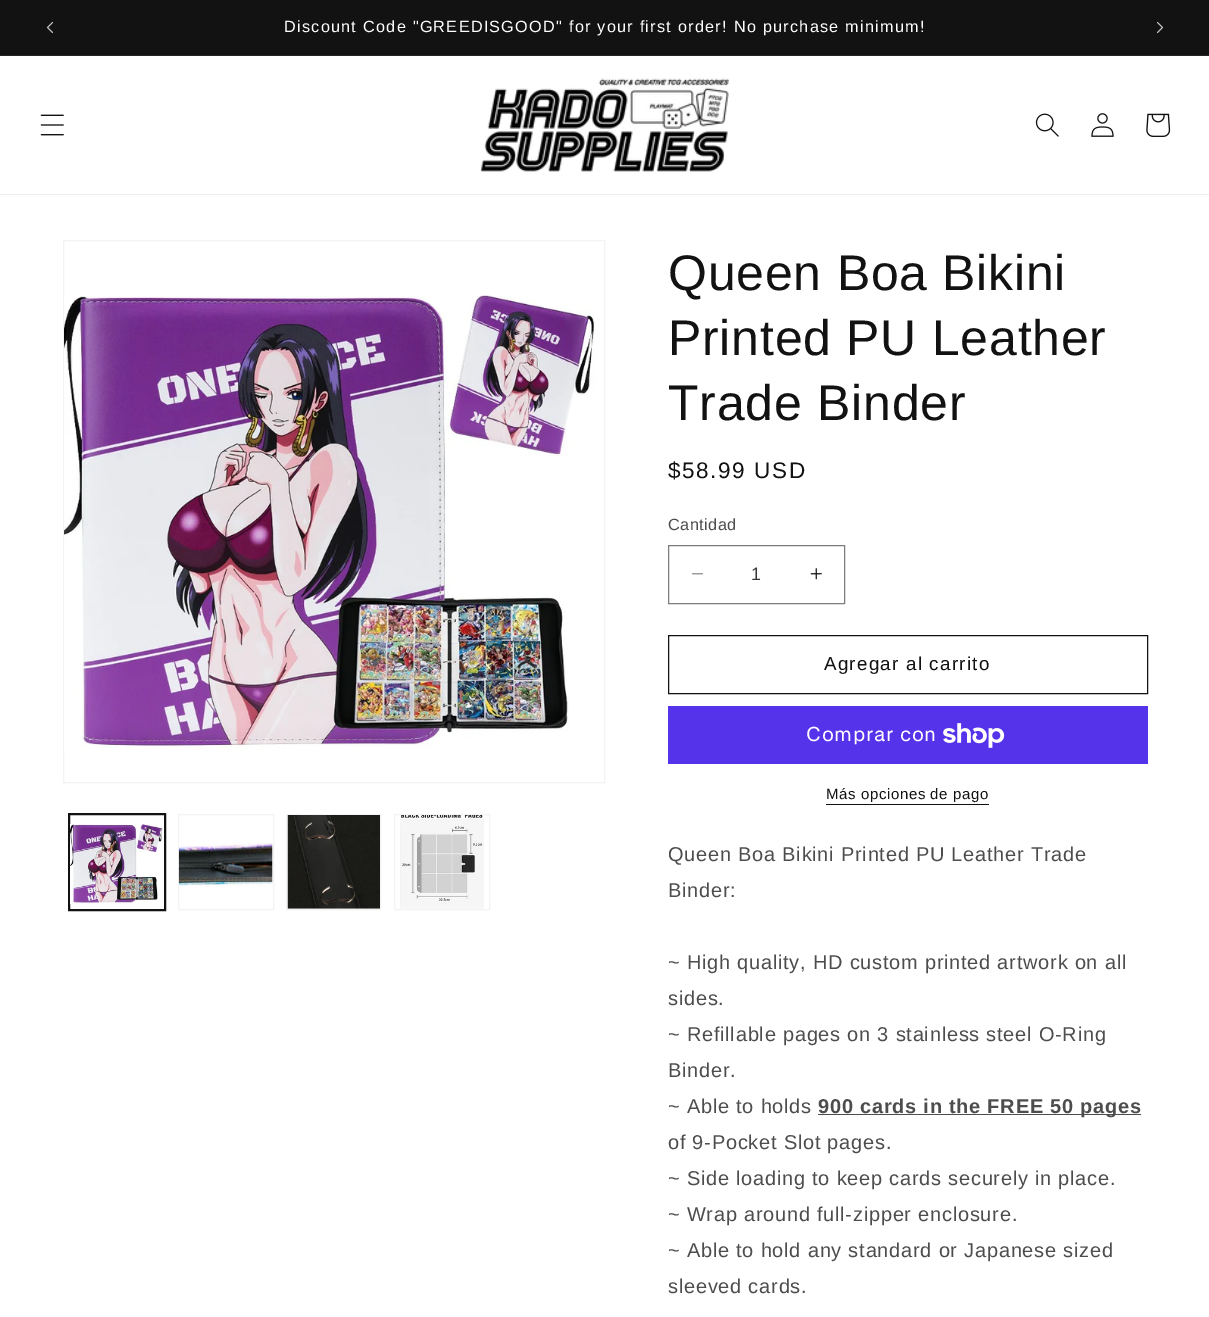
%!PS
<< /PageSize [1209 1317] >> setpagedevice
/picture { 5 dict begin { /h /w /y /x /name } { exch def } forall
  gsave x y translate w h scale
  w h 8 [w 0 0 h 0 0] name (r) file false 3 colorimage grestore end } def
0 1317 translate 1 -1 scale
4 setmiterlimit
1 setgray
0 0 1209 1317 rectfill
0.071 setgray
0 0 1209 55 rectfill
0.145 setgray
0 55 1209 1 rectfill
(img1.rgb) 46 21 8 12 picture
/LiberationSans-Regular [16.25 0 0 -16.25 0 0] selectfont
1 setgray
284 32 moveto 1.25 0 (Discount Code "GREEDISGOOD" for your first order! No purchase minimum!) ashow
(img2.rgb) 1156 22 8 11 picture
0.925 setgray
0 194 1209 1 rectfill
(img3.rgb) 40 114 24 22 picture
(img4.rgb) 480 78 249 94 picture
(img5.rgb) 1035 113 24 24 picture
(img6.rgb) 1091 113 23 24 picture
(img7.rgb) 1146 113 25 24 picture
0.953 setgray
63.5 240.5 541 542 rectstroke
(img8.rgb) 64 295 532 455 picture
0.071 setgray
68.5 813.5 97 97 rectstroke
69.5 814.5 95 95 rectstroke
(img9.rgb) 70 824 93 80 picture
0.953 setgray
178.5 814.5 95 95 rectstroke
(img10.rgb) 178 842 95 45 picture
286.5 814.5 94 95 rectstroke
(img11.rgb) 287 815 93 94 picture
394.5 814.5 95 95 rectstroke
(img12.rgb) 400 815 84 94 picture
/LiberationSans-Regular [50 0 0 -50 0 0] selectfont
0.071 setgray
668 290 moveto 0.75 0 (Queen Boa Bikini) ashow
668 355 moveto 0.75 0 (Printed PU Leather) ashow
668 420 moveto 0.75 0 (Trade Binder) ashow
/LiberationSans-Regular [22.5 0 0 -22.5 0 0] selectfont
668 478 moveto 1.6 0 ($58.99 USD) ashow
/LiberationSans-Regular [16.25 0 0 -16.25 0 0] selectfont
0.302 setgray
668 530 moveto 0.5 0 (Cantidad) ashow
(img13.rgb) 692 573 11 2 picture
(img14.rgb) 810 568 12 12 picture
0.49 setgray
668.5 545.5 176 58 rectstroke
/LiberationSans-Regular [18 0 0 -18 0 0] selectfont
0.212 setgray
751 580 moveto (1) show
0.071 setgray
668.5 635.5 479 58 rectstroke
/LiberationSans-Regular [18.75 0 0 -18.75 0 0] selectfont
824 670 moveto 1.25 0 (Agregar al carrito) ashow
0.329 0.2 0.922 setrgbcolor
668 706 480 58 rectfill
/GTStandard-Regular [20 0 0 -20 0 0] selectfont
1 setgray
806 741 moveto 0.75 0 (Comprar con) ashow
(img15.rgb) 943 723 62 25 picture
/LiberationSans-Regular [15 0 0 -15 0 0] selectfont
0.071 setgray
826 799 moveto 0.6 0 (Más opciones de pago) ashow
826 804 163 1 rectfill
/LiberationSans-Regular [20 0 0 -20 0 0] selectfont
0.302 setgray
668 861 moveto 0.75 0 (Queen Boa Bikini Printed PU Leather Trade) ashow
668 897 moveto 0.75 0 (Binder:) ashow
668 969 moveto 0.75 0 (~ High quality, HD custom printed artwork on all) ashow
668 1005 moveto 0.75 0 (sides.) ashow
668 1041 moveto 0.75 0 (~ Refillable pages on 3 stainless steel O-Ring) ashow
668 1077 moveto 0.75 0 (Binder.) ashow
668 1113 moveto 0.75 0 (~ Able to holds) ashow
/LiberationSans-Bold [20 0 0 -20 0 0] selectfont
818 1113 moveto 0.75 0 (900 cards in the FREE 50) ashow
818 1114 323 1 rectfill
1080 1113 moveto 0.75 0 (pages) ashow
/LiberationSans-Regular [20 0 0 -20 0 0] selectfont
668 1149 moveto 0.75 0 (of 9-Pocket Slot pages.) ashow
668 1185 moveto 0.75 0 (~ Side loading to keep cards securely in place.) ashow
668 1221 moveto 0.75 0 (~ Wrap around full-zipper enclosure.) ashow
668 1257 moveto 0.75 0 (~ Able to hold any standard or Japanese sized) ashow
668 1293 moveto 0.75 0 (sleeved cards.) ashow
showpage
